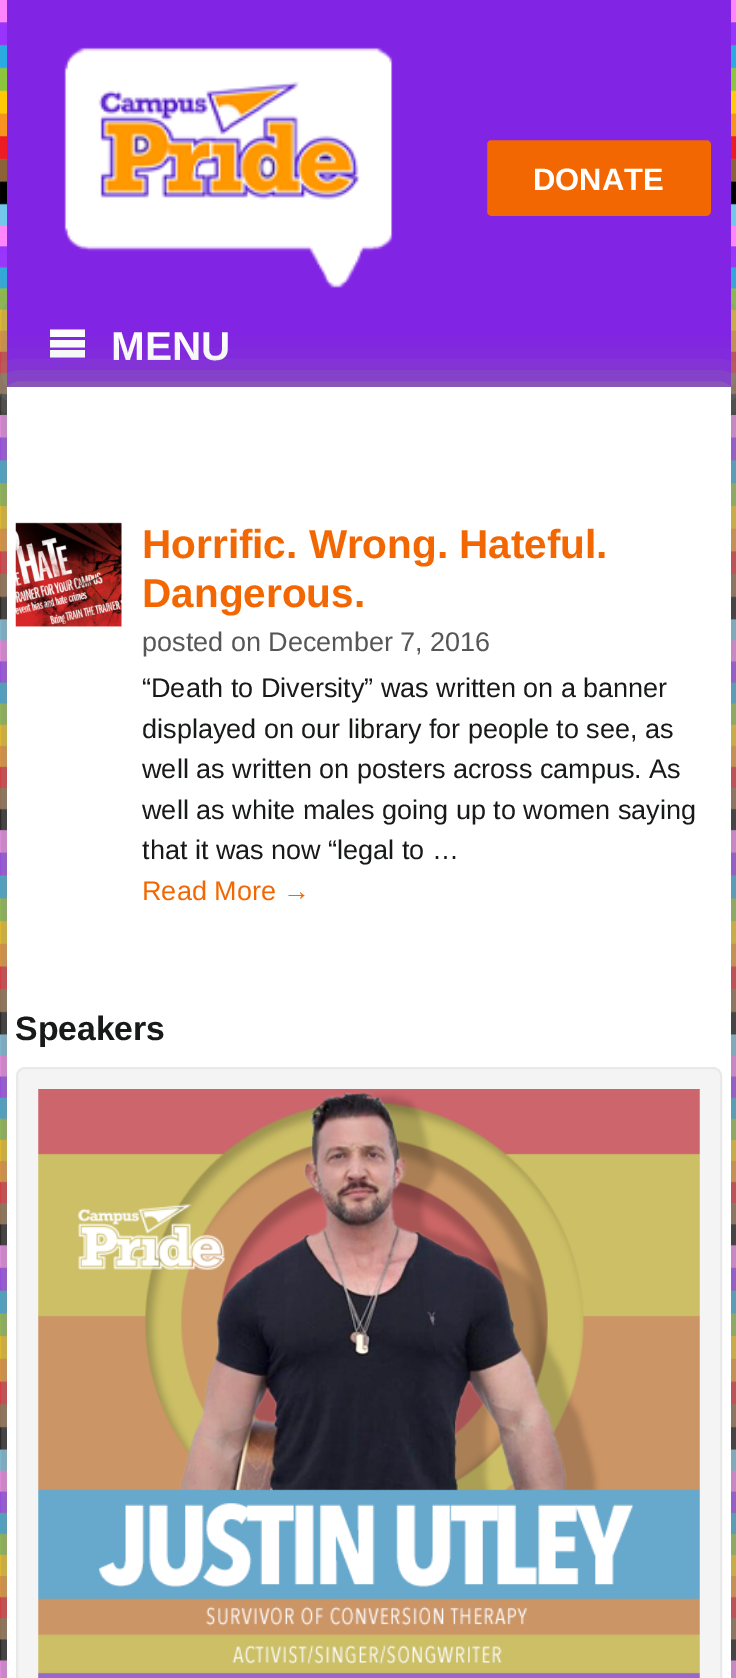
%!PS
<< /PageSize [736 1678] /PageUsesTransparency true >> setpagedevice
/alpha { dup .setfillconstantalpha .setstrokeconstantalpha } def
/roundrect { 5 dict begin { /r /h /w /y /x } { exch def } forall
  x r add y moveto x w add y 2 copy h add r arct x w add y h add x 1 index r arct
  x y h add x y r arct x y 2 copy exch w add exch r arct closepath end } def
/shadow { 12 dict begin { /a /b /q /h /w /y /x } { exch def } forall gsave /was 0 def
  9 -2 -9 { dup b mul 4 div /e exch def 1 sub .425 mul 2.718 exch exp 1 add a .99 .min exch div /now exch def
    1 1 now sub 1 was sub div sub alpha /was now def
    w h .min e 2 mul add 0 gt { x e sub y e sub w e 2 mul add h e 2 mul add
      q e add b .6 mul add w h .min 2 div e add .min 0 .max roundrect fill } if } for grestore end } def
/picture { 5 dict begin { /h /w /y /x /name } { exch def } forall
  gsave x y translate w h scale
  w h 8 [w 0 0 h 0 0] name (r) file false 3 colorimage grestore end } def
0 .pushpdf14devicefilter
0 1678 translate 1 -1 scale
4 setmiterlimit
1 setgray
0 0 736 1678 rectfill
(img1.rgb) 0 0 736 1678 picture
0.557 0.549 0.545 setrgbcolor
7 302 724 85 0 22.5 1 shadow
0.51 0.141 0.89 setrgbcolor
7 0 724 387 rectfill
(img2.rgb) 64 47 329 241 picture
0.953 0.404 0.008 setrgbcolor
484.5 137.5 229 81 6.5 roundrect gsave fill grestore
0.51 0.141 0.89 setrgbcolor
5 setlinewidth
stroke
/LiberationSans-Bold [31 0 0 -31 0 0] selectfont
1 setgray
533 190 moveto (DONATE) show
newpath 50 329.5 moveto 85 329.5 lineto 85 337 lineto 50 337 lineto closepath 50 340 moveto 85 340 lineto 85 347.5 lineto 50 347.5 lineto closepath 50 350 moveto 85 350 lineto 85 357.5 lineto 50 357.5 lineto closepath fill
/LiberationSans-Bold [40.5 0 0 -40.5 0 0] selectfont
111 360 moveto (MENU) show
0.557 0.549 0.545 setrgbcolor
7 387 724 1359 0 22.5 1 shadow
1 setgray
7 387 724 1291 rectfill
(img3.rgb) 15 522 107 105 picture
0.953 0.404 0.008 setrgbcolor
142 558 moveto (Horrific. Wrong. Hateful.) show
142 607 moveto (Dangerous.) show
/LiberationSans-Regular [27 0 0 -27 0 0] selectfont
0.337 setgray
142 651 moveto (posted on December 7, 2016) show
0.094 0.098 0.098 setrgbcolor
142 697 moveto (“Death to Diversity” was written on a banner) show
142 738 moveto (displayed on our library for people to see, as) show
142 778 moveto (well as written on posters across campus. As) show
142 819 moveto (well as white males going up to women saying) show
142 859 moveto (that it was now “legal to …) show
0.953 0.404 0.008 setrgbcolor
142 900 moveto (Read More →) show
/LiberationSans-Bold [33.75 0 0 -33.75 0 0] selectfont
0.094 0.098 0.098 setrgbcolor
15 1040 moveto (Speakers) show
0.957 setgray
17 1068 704 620 8 roundrect gsave fill grestore
0.914 setgray
2 setlinewidth
stroke
(img4.rgb) 38 1089 662 589 picture
.poppdf14devicefilter showpage
